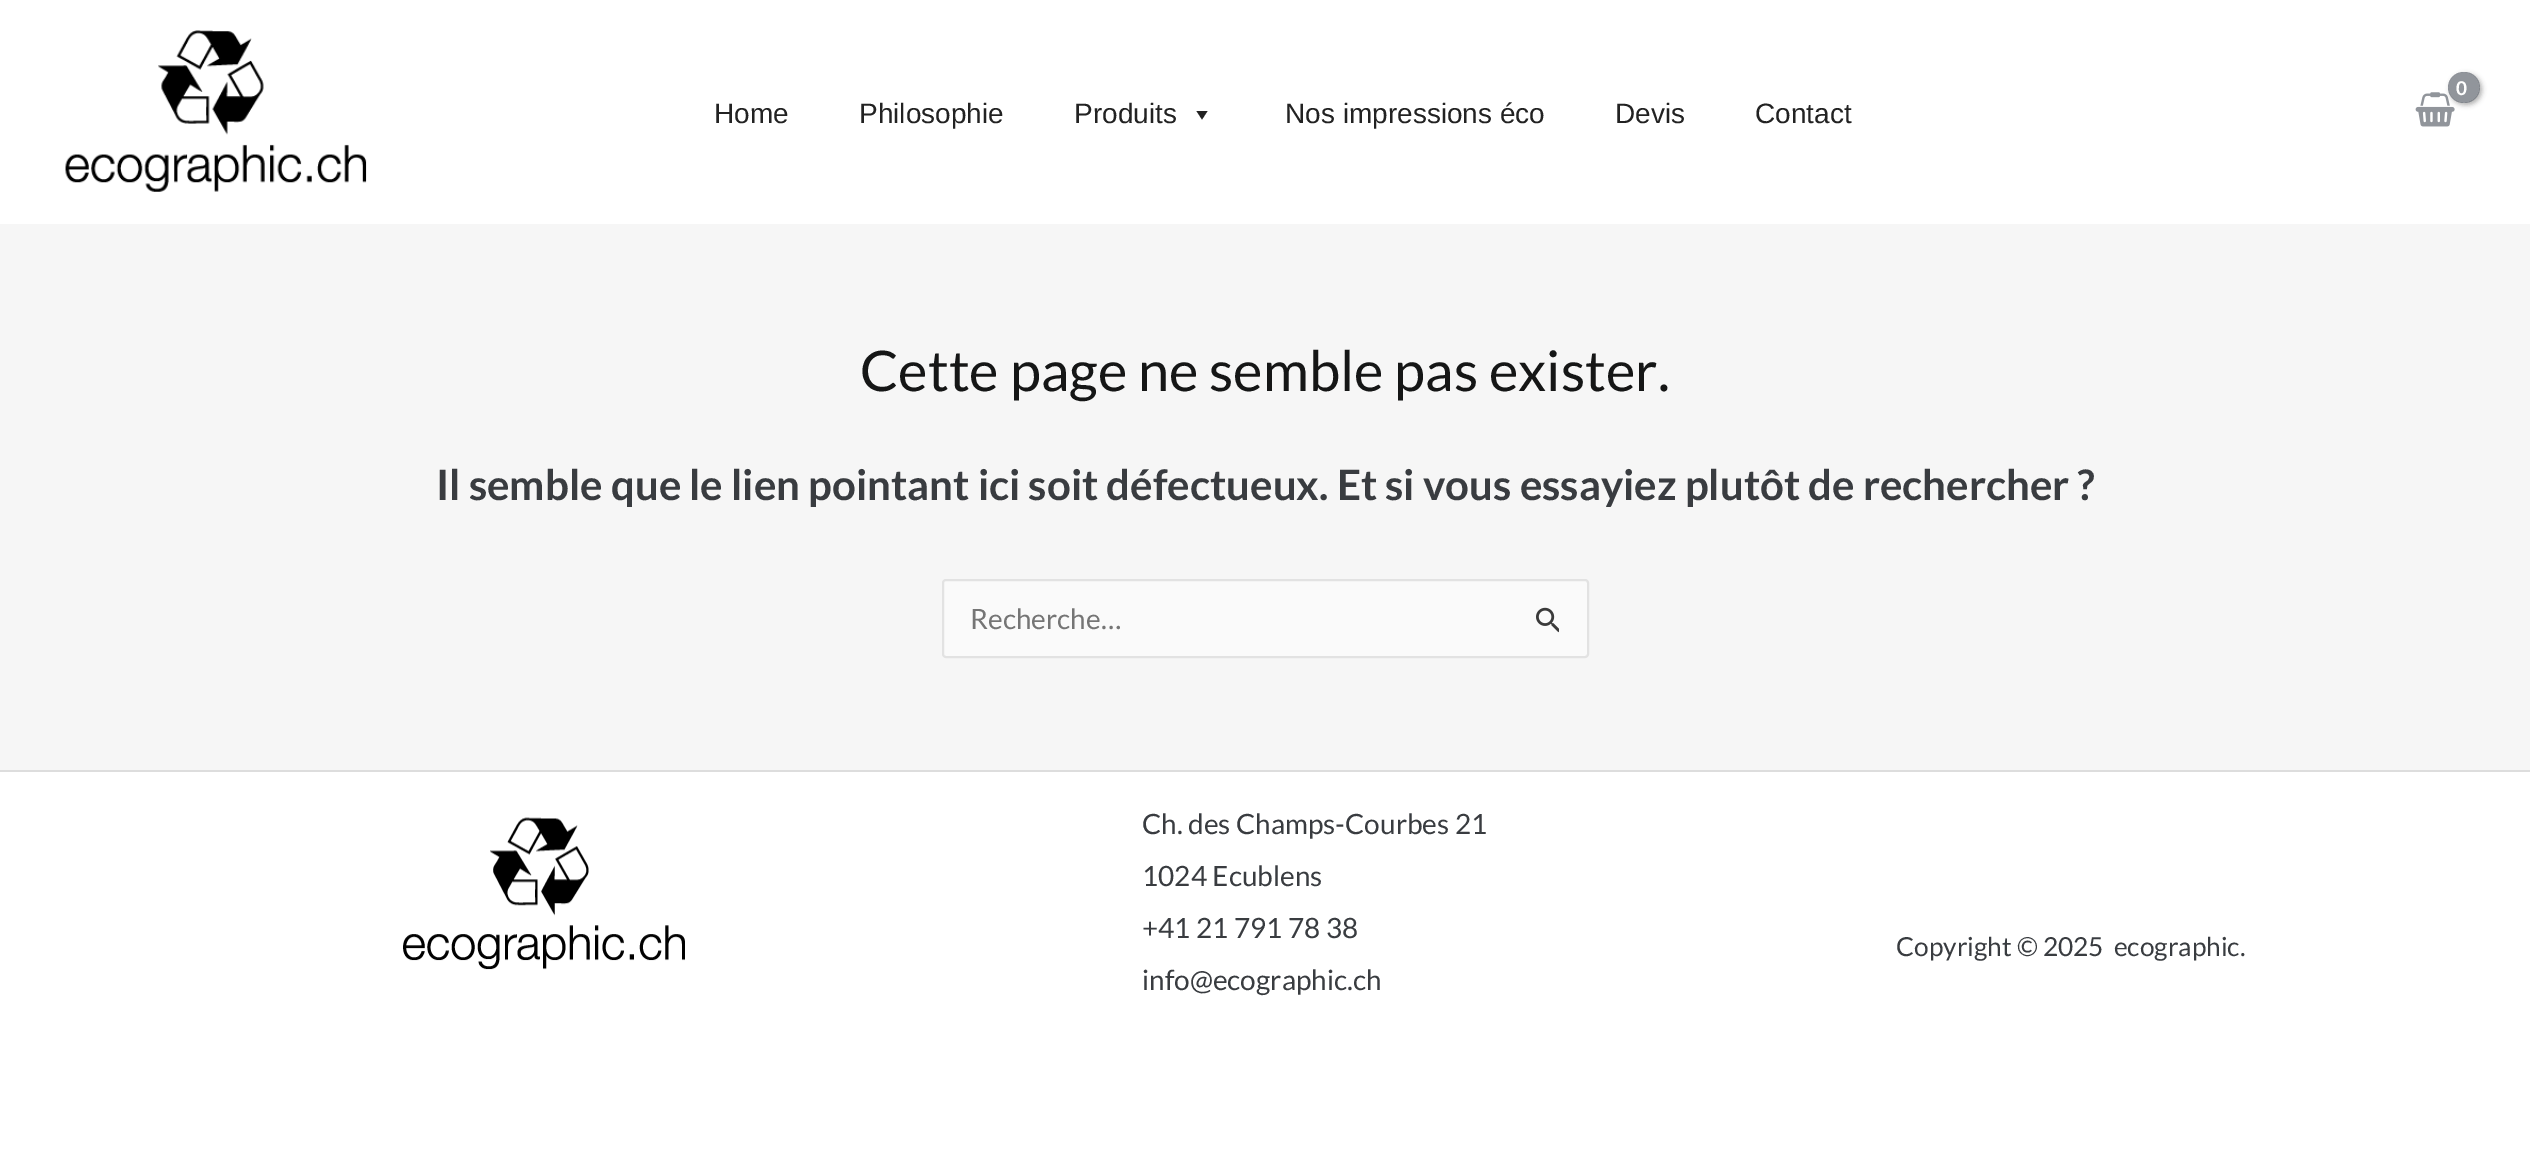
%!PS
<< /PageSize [2530 1168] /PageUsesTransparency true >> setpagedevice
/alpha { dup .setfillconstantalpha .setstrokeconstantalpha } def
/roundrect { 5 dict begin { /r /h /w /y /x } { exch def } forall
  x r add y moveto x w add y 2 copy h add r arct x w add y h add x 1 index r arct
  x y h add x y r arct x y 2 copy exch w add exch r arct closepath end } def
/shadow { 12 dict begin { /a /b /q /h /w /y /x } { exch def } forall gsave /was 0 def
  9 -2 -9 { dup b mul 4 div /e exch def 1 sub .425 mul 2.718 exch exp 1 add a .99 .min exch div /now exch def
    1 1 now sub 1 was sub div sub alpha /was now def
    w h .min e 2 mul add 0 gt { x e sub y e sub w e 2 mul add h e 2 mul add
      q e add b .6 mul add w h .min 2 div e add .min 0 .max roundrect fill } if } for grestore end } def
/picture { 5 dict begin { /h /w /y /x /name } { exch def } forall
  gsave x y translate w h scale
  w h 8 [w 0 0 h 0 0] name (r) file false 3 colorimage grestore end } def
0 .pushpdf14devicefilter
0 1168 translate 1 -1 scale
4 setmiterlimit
0.965 setgray
0 0 2530 1168 rectfill
1 setgray
0 0 2530 224 rectfill
(img1.rgb) 65 30 302 162 picture
(img2.rgb) 2415 92 40 35 picture
gsave
newpath 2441 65 moveto 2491 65 lineto 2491 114 lineto 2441 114 lineto closepath 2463.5 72 moveto 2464.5 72 lineto 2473 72 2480 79 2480 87.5 curveto 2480 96 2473 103 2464.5 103 curveto 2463.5 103 lineto 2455 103 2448 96 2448 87.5 curveto 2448 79 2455 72 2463.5 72 curveto closepath eoclip newpath
0 setgray
2450 74 32 31 15.5 2.5 0.3 shadow
grestore
0.79 alpha
0.451 0.471 0.502 setrgbcolor
2448 72 32 31 15.5 roundrect fill
/Lato-Bold [19 0 0 -19 0 0] selectfont
1 alpha
1 setgray
2456 95 moveto -1 0 (0) ashow
/LiberationSans-Regular [28 0 0 -28 0 0] selectfont
0.133 setgray
714 123 moveto (Home) show
859 123 moveto (Philosophie) show
1074 123 moveto (Produits) show
newpath 1207.5 111 moveto 1202 119.5 lineto 1196.5 111 lineto closepath fill
1285 123 moveto (Nos impressions éco) show
1615 123 moveto (Devis) show
1755 123 moveto (Contact) show
/Lato-Regular [56 0 0 -56 0 0] selectfont
0.082 0.086 0.086 setrgbcolor
860 391 moveto (Cette page ne semble pas exister.) show
/Lato-Bold [42 0 0 -42 0 0] selectfont
0.224 0.235 0.251 setrgbcolor
436 500 moveto (Il semble que le lien pointant ici soit défectueux. Et si vous essayiez plutôt de rechercher ?) show
0.98 setgray
943 580 645 77 3 roundrect gsave fill grestore
0.886 setgray
2 setlinewidth
stroke
/Lato-Regular [28 0 0 -28 0 0] selectfont
0.459 setgray
970 629 moveto (Recherche…) show
(img3.rgb) 1536 607 23 26 picture
1 setgray
0 772 2530 396 rectfill
0.867 setgray
0 770 2530 2 rectfill
(img4.rgb) 403 817 282 153 picture
0.224 0.235 0.251 setrgbcolor
1142 834 moveto (Ch. des Champs-Courbes 21) show
1142 886 moveto (1024 Ecublens) show
1142 938 moveto (+41 21 791 78 38) show
1142 990 moveto (info@ecographic.ch) show
/Lato-Regular [26.25 0 0 -26.25 0 0] selectfont
1896 956 moveto (Copyright © 2025  ecographic.) show
.poppdf14devicefilter showpage
